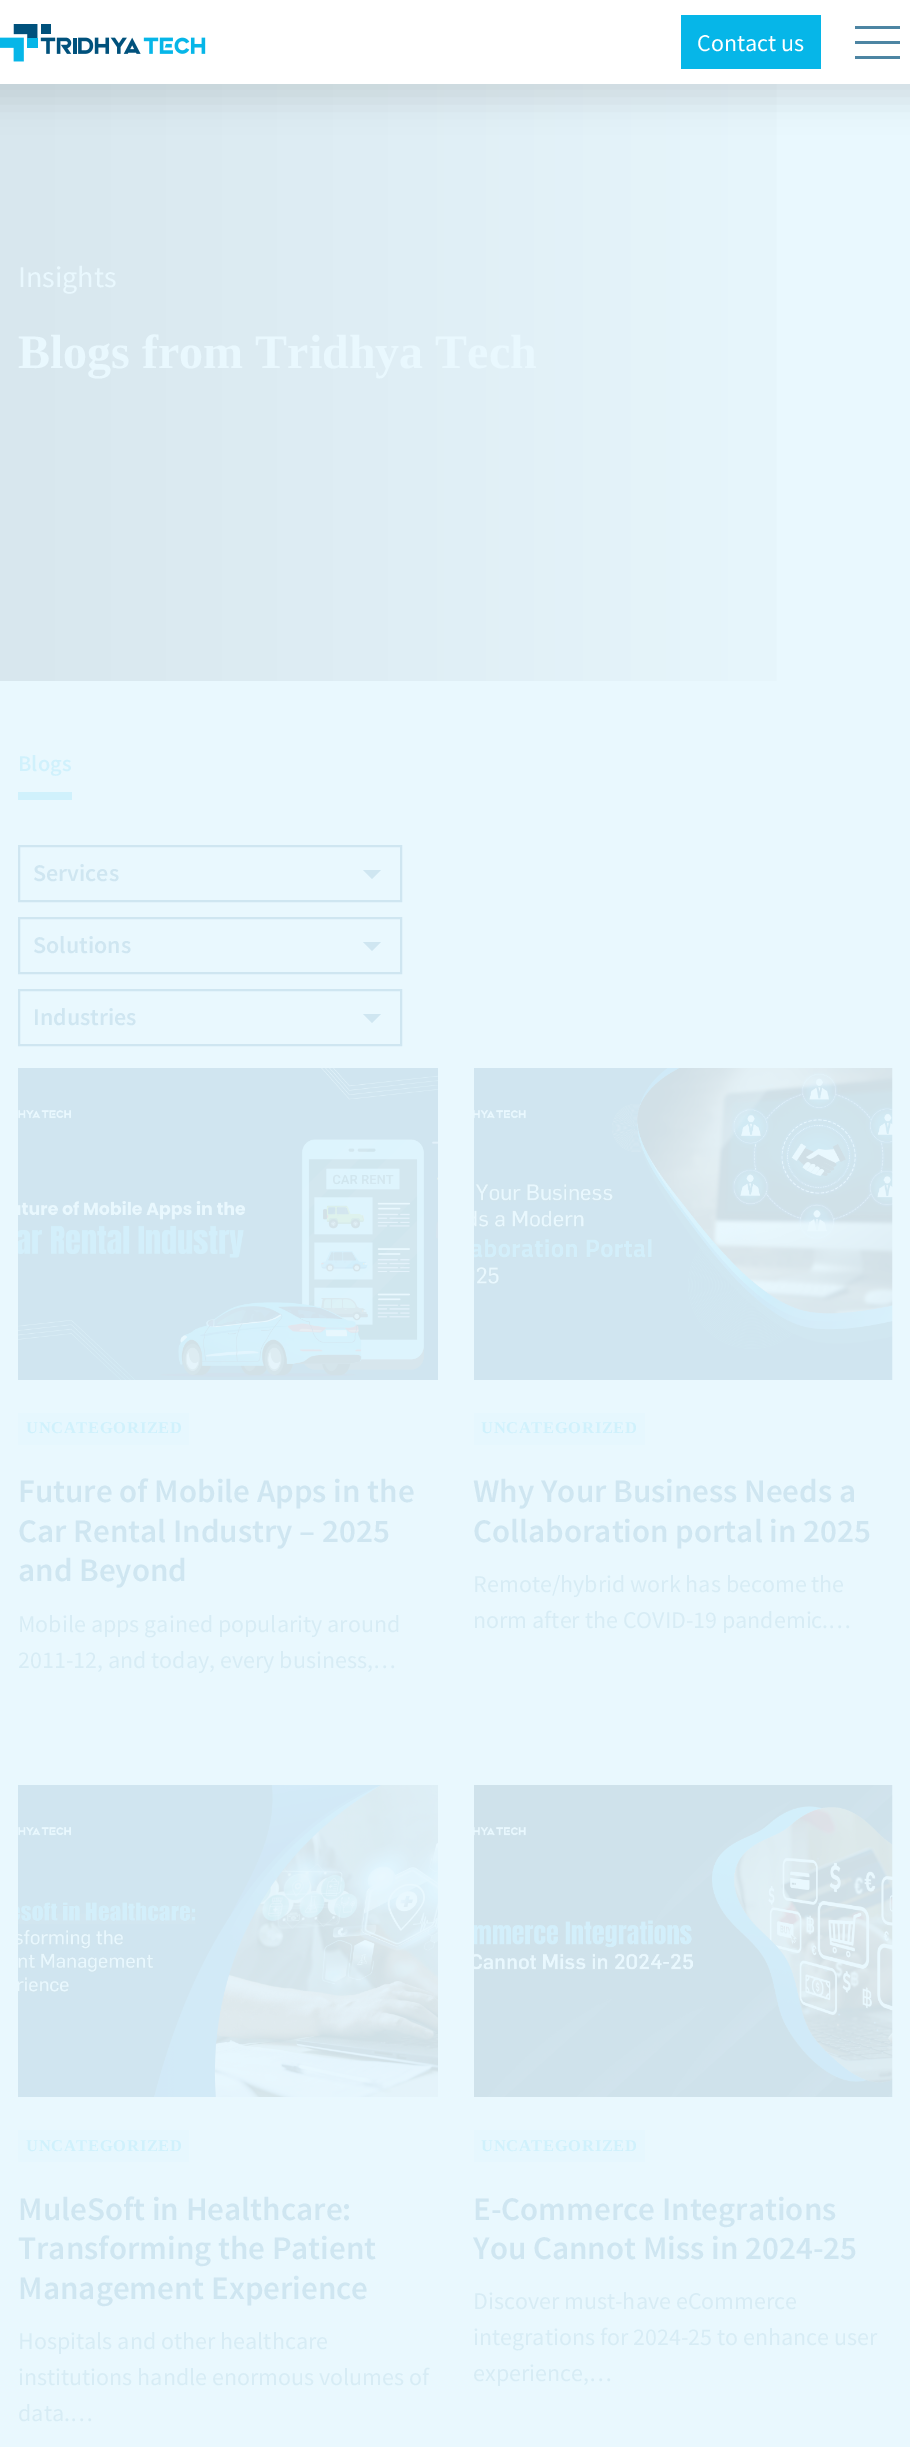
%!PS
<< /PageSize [910 2447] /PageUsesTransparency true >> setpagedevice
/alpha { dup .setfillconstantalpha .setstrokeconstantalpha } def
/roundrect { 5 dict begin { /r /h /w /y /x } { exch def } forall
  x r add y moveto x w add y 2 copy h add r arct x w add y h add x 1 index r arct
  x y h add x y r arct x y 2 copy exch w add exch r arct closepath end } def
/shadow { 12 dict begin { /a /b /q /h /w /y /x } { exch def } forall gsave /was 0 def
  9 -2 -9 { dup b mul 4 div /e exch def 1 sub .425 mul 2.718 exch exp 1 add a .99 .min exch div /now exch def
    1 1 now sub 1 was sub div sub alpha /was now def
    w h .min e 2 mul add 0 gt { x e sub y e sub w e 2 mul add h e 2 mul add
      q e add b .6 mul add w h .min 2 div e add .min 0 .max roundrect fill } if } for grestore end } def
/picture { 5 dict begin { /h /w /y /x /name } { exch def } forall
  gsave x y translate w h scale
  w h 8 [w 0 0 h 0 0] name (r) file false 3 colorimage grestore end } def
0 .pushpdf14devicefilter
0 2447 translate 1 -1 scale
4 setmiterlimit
0.914 0.973 0.996 setrgbcolor
0 0 910 2447 rectfill
gsave newpath 0 84 moveto 777 84 lineto 777 681 lineto 0 681 lineto closepath clip newpath
<< /ShadingType 2 /ColorSpace /DeviceRGB /Coords [0 381 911 381] /Extend [true true] /Function << /FunctionType 2 /Domain [0 1] /C0 [0.847 0.906 0.933] /C1 [0.914 0.973 0.996] /N 1 >> >> shfill grestore
0 setgray
-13 -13 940 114 0 15 0.1 shadow
1 setgray
0 0 910 84 rectfill
(img1.rgb) 0 24 206 38 picture
0.024 0.714 0.91 setrgbcolor
681 15 140 54 rectfill
/SourceSansPro-Regular [24 0 0 -24 0 0] selectfont
1 setgray
697 51 moveto (Contact us) show
0.302 0.522 0.639 setrgbcolor
855 41 45 3 rectfill
855 26 45 3 rectfill
855 56 45 3 rectfill
/SourceSansPro-Regular [30 0 0 -30 0 0] selectfont
0.914 0.973 0.996 setrgbcolor
18 287 moveto (Insights) show
/LiberationSerif-Bold [48 0 0 -48 0 0] selectfont
18 368 moveto (Blogs from Tridhya Tech) show
/SourceSansPro-SemiBold [22.5 0 0 -22.5 0 0] selectfont
0.816 0.945 0.988 setrgbcolor
18 771 moveto (Blogs) show
18 792 54 8 rectfill
0.812 0.902 0.945 setrgbcolor
2 setlinewidth
19 846 382 55 rectstroke
/SourceSansPro-SemiBold [24 0 0 -24 0 0] selectfont
33 881 moveto (Services) show
newpath 363 870 moveto 381 870 lineto 372 879 lineto closepath fill
19 918 382 55 rectstroke
33 953 moveto (Solutions) show
newpath 363 942 moveto 381 942 lineto 372 951 lineto closepath fill
19 990 382 55 rectstroke
33 1025 moveto (Industries) show
newpath 363 1014 moveto 381 1014 lineto 372 1023 lineto closepath fill
(img2.rgb) 18 1068 420 312 picture
0.902 0.969 0.996 setrgbcolor
18 1413 171 32 rectfill
/LiberationSerif-Bold [16.5 0 0 -16.5 0 0] selectfont
0.816 0.945 0.988 setrgbcolor
26 1433 moveto 0.7 0 (UNCATEGORIZED) ashow
/SourceSansPro-SemiBold [33 0 0 -33 0 0] selectfont
0.812 0.902 0.945 setrgbcolor
18 1502 moveto (Future of Mobile Apps in the) show
18 1542 moveto (Car Rental Industry – 2025) show
18 1581 moveto (and Beyond) show
/SourceSansPro-Regular [24 0 0 -24 0 0] selectfont
0.843 0.925 0.961 setrgbcolor
18 1632 moveto (Mobile apps gained popularity around) show
18 1668 moveto (2011-12, and today, every business,…) show
(img3.rgb) 474 1068 419 312 picture
0.902 0.969 0.996 setrgbcolor
474 1413 171 32 rectfill
/LiberationSerif-Bold [16.5 0 0 -16.5 0 0] selectfont
0.816 0.945 0.988 setrgbcolor
481 1433 moveto 0.7 0 (UNCATEGORIZED) ashow
/SourceSansPro-SemiBold [33 0 0 -33 0 0] selectfont
0.812 0.902 0.945 setrgbcolor
473 1502 moveto (Why Your Business Needs a) show
473 1542 moveto (Collaboration portal in 2025) show
/SourceSansPro-Regular [24 0 0 -24 0 0] selectfont
0.843 0.925 0.961 setrgbcolor
473 1592 moveto (Remote/hybrid work has become the) show
473 1628 moveto (norm after the COVID-19 pandemic.…) show
(img4.rgb) 18 1785 420 312 picture
0.902 0.969 0.996 setrgbcolor
18 2130 171 32 rectfill
/LiberationSerif-Bold [16.5 0 0 -16.5 0 0] selectfont
0.816 0.945 0.988 setrgbcolor
26 2151 moveto 0.7 0 (UNCATEGORIZED) ashow
/SourceSansPro-SemiBold [33 0 0 -33 0 0] selectfont
0.812 0.902 0.945 setrgbcolor
18 2220 moveto (MuleSoft in Healthcare:) show
18 2259 moveto (Transforming the Patient) show
18 2299 moveto (Management Experience) show
/SourceSansPro-Regular [24 0 0 -24 0 0] selectfont
0.843 0.925 0.961 setrgbcolor
18 2349 moveto (Hospitals and other healthcare) show
18 2385 moveto (institutions handle enormous volumes of) show
18 2421 moveto (data.…) show
(img5.rgb) 474 1785 419 312 picture
0.902 0.969 0.996 setrgbcolor
474 2130 171 32 rectfill
/LiberationSerif-Bold [16.5 0 0 -16.5 0 0] selectfont
0.816 0.945 0.988 setrgbcolor
481 2151 moveto 0.7 0 (UNCATEGORIZED) ashow
/SourceSansPro-SemiBold [33 0 0 -33 0 0] selectfont
0.812 0.902 0.945 setrgbcolor
473 2220 moveto (E-Commerce Integrations) show
473 2259 moveto (You Cannot Miss in 2024-25) show
/SourceSansPro-Regular [24 0 0 -24 0 0] selectfont
0.843 0.925 0.961 setrgbcolor
473 2309 moveto (Discover must-have eCommerce) show
473 2345 moveto (integrations for 2024-25 to enhance user) show
473 2381 moveto (experience,…) show
.poppdf14devicefilter showpage
